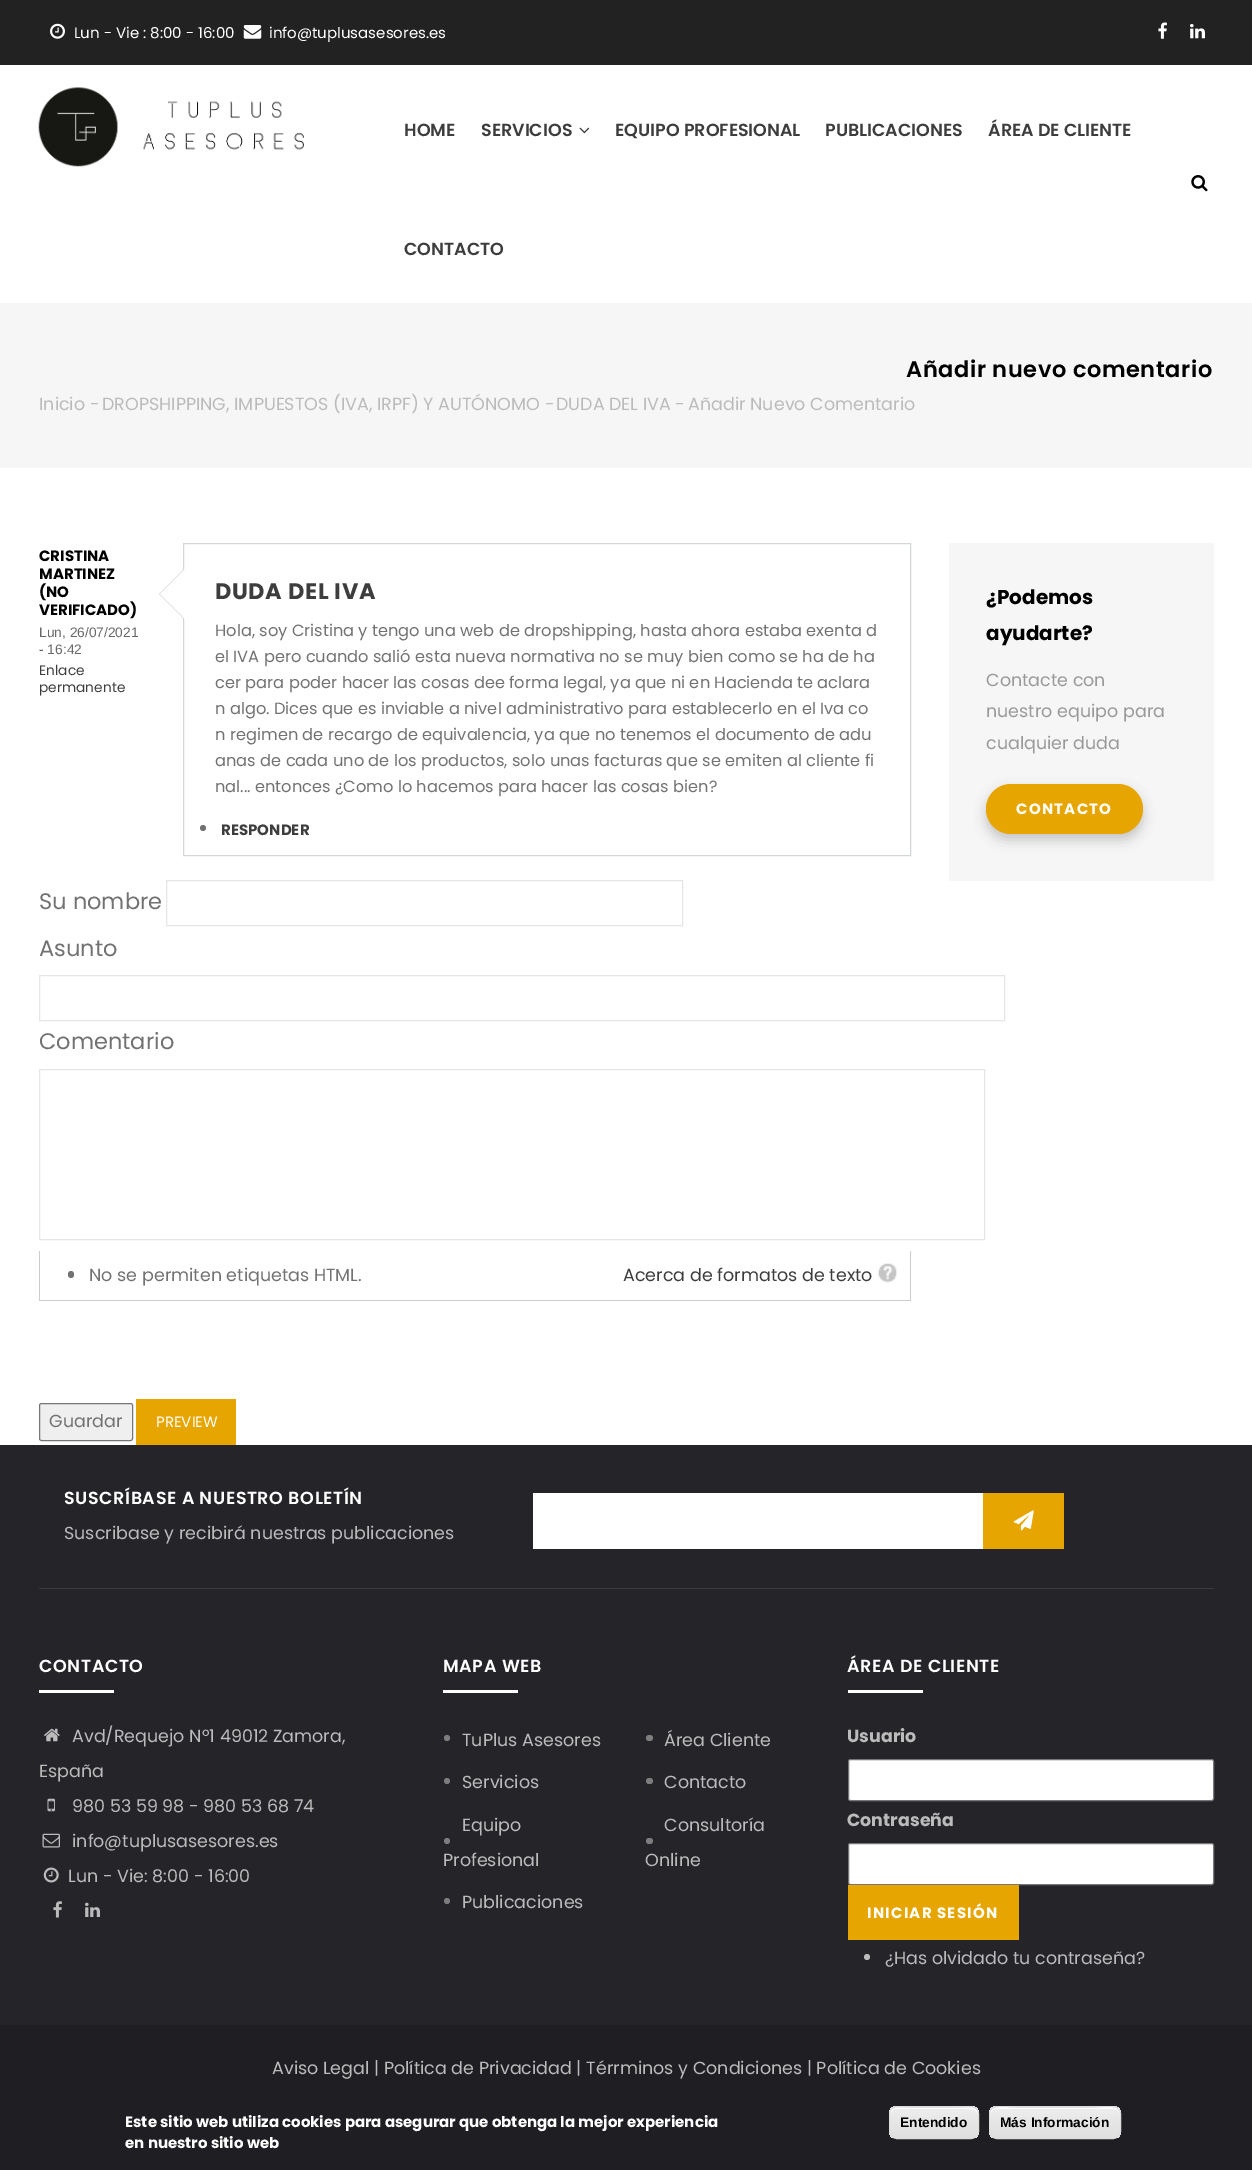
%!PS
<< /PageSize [1252 2170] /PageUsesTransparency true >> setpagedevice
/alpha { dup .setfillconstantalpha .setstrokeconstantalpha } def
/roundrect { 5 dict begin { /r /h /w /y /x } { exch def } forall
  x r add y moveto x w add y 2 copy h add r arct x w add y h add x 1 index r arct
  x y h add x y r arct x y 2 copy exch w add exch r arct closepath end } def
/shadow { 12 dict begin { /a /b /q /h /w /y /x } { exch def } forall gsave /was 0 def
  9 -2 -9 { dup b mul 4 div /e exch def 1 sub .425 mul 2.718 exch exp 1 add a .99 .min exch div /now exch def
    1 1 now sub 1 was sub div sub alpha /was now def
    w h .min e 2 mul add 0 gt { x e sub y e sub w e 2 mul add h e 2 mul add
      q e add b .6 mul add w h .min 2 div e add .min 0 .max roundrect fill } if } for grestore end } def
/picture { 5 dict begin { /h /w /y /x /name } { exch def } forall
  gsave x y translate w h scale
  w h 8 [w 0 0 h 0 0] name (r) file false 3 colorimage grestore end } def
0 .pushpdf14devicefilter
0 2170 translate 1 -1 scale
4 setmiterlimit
1 setgray
0 0 1252 2170 rectfill
0.133 setgray
0 0 1252 65 rectfill
(img1.rgb) 50 23 15 16 picture
/Poppins-Regular [15 0 0 -15 0 0] selectfont
1 setgray
74 38 moveto (Lun - Vie : 8:00 - 16:00) show
(img2.rgb) 243 25 19 14 picture
269 38 moveto (info@tuplusasesores.es) show
(img3.rgb) 1158 22 9 17 picture
(img4.rgb) 1190 24 15 15 picture
(img5.rgb) 38 87 266 80 picture
/Poppins-SemiBold [17.5 0 0 -17.5 0 0] selectfont
0.239 setgray
404 136 moveto (HOME) show
481 136 moveto (SERVICIOS) show
(img6.rgb) 579 127 11 7 picture
615 136 moveto (EQUIPO PROFESIONAL) show
825 136 moveto (PUBLICACIONES) show
988 136 moveto (ÁREA DE CLIENTE) show
404 255 moveto (CONTACTO) show
(img7.rgb) 1191 175 17 17 picture
0.965 setgray
0 303 1252 165 rectfill
/Poppins-SemiBold [22.5 0 0 -22.5 0 0] selectfont
0 setgray
906 377 moveto 0.6 0 (Añadir nuevo comentario) ashow
/Poppins-Regular [17.5 0 0 -17.5 0 0] selectfont
0.733 setgray
39 410 moveto (Inicio -) show
102 410 moveto (DROPSHIPPING, IMPUESTOS \(IVA, IRPF\) Y AUTÓNOMO -) show
556 410 moveto (DUDA DEL IVA -) show
688 410 moveto (Añadir Nuevo Comentario) show
/Poppins-Bold [15 0 0 -15 0 0] selectfont
0 setgray
39 561 moveto (CRISTINA) show
39 579 moveto (MARTINEZ) show
39 597 moveto (\(NO) show
39 615 moveto (VERIFICADO\)) show
/LiberationSans-Regular [13.75 0 0 -13.75 0 0] selectfont
0.408 0.412 0.42 setrgbcolor
39 637 moveto (Lun, 26/07/2021) show
39 654 moveto (- 16:42) show
/Poppins-Regular [13.75 0 0 -13.75 0 0] selectfont
0.239 setgray
39 675 moveto (Enlace) show
39 692 moveto (permanente) show
0.827 0.843 0.851 setrgbcolor
183.5 543.5 727 312 rectstroke
newpath 184 569 moveto 184 619 lineto 159 594 lineto closepath fill
1 setgray
newpath 185 569 moveto 185 619 lineto 160 594 lineto closepath fill
/Poppins-Bold [22.5 0 0 -22.5 0 0] selectfont
0.239 setgray
215 599 moveto 0.6 0 (DUDA DEL IVA) ashow
/Poppins-Regular [16.25 0 0 -16.25 0 0] selectfont
0.447 setgray
215 636 moveto (Hola, soy Cristina y tengo una web de dropshipping, hasta ahora estaba exenta d) show
215 662 moveto (el IVA pero cuando salió esta nueva normativa no se muy bien como se ha de ha) show
215 688 moveto (cer para poder hacer las cosas dee forma legal, ya que ni en Hacienda te aclara) show
215 714 moveto (n algo. Dices que es inviable a nivel administrativo para establecerlo en el Iva co) show
215 740 moveto (n regimen de recargo de equivalencia, ya que no tenemos el documento de adu) show
215 766 moveto (anas de cada uno de los productos, solo unas facturas que se emiten al cliente fi) show
215 792 moveto (nal... entonces ¿Como lo hacemos para hacer las cosas bien?) show
newpath 203 828 3 0 360 arc closepath fill
/Poppins-Bold [15 0 0 -15 0 0] selectfont
0.239 setgray
221 835 moveto (RESPONDER) show
/Poppins-Regular [22.5 0 0 -22.5 0 0] selectfont
0.447 setgray
39 909 moveto (Su nombre) show
0.902 setgray
166.5 880.5 516 45 rectstroke
0.447 setgray
39 956 moveto (Asunto) show
0.902 setgray
39.5 975.5 965 45 rectstroke
0.447 setgray
39 1049 moveto (Comentario) show
0.902 setgray
39.5 1069.5 945 170 rectstroke
0.8 setgray
910 1251 1 50 rectfill
39 1300 872 1 rectfill
39 1251 1 50 rectfill
0.447 setgray
68 1271 6 7 3 roundrect fill
/Poppins-Regular [17.5 0 0 -17.5 0 0] selectfont
89 1281 moveto (No se permiten etiquetas HTML.) show
0.239 setgray
623 1281 moveto (Acerca de formatos de texto) show
(img8.rgb) 878 1263 19 20 picture
0.937 setgray
39.5 1403.5 93 37 2 roundrect gsave fill grestore
0.463 setgray
stroke
0.447 setgray
49 1427 moveto (Guardar) show
0.902 0.647 0 setrgbcolor
136 1399 100 46 rectfill
/Poppins-Regular [15 0 0 -15 0 0] selectfont
1 setgray
156 1427 moveto (PREVIEW) show
0.965 setgray
949 543 265 338 rectfill
/Poppins-Bold [20 0 0 -20 0 0] selectfont
0 setgray
986 604 moveto (¿Podemos) show
986 640 moveto (ayudarte?) show
/Poppins-Regular [17.5 0 0 -17.5 0 0] selectfont
0.6 setgray
986 686 moveto (Contacte con) show
986 717 moveto (nuestro equipo para) show
986 749 moveto (cualquier duda) show
0 setgray
986 790 157 50 25 6 0.2 shadow
0.902 0.647 0 setrgbcolor
986 784 157 50 25 roundrect fill
/Poppins-Bold [15 0 0 -15 0 0] selectfont
1 setgray
1016 814 moveto 1.25 0 (CONTACTO) ashow
0.145 0.141 0.161 setrgbcolor
0 1445 1252 580 rectfill
0.231 0.227 0.243 setrgbcolor
39 1588 1175 1 rectfill
/Poppins-SemiBold [17.5 0 0 -17.5 0 0] selectfont
1 setgray
64 1504 moveto 0.6 0 (SUSCRÍBASE A NUESTRO BOLETÍN) ashow
/Poppins-Regular [17.5 0 0 -17.5 0 0] selectfont
0.733 setgray
64 1539 moveto (Suscribase y recibirá nuestras publicaciones) show
1 setgray
533 1493 450 56 rectfill
0.902 0.647 0 setrgbcolor
983 1493 81 56 rectfill
(img9.rgb) 1013 1510 21 21 picture
/Poppins-SemiBold [17.5 0 0 -17.5 0 0] selectfont
1 setgray
39 1672 moveto 0.6 0 (CONTACTO) ashow
39 1690 75 3 rectfill
(img10.rgb) 44 1728 16 14 picture
/Poppins-Regular [17.5 0 0 -17.5 0 0] selectfont
0.733 setgray
72 1742 moveto (Avd/Requejo Nº1 49012 Zamora,) show
39 1777 moveto (España) show
(img11.rgb) 47 1798 8 14 picture
72 1812 moveto (980 53 59 98 - 980 53 68 74) show
(img12.rgb) 42 1833 18 15 picture
72 1847 moveto (info@tuplusasesores.es) show
(img13.rgb) 43 1867 16 16 picture
68 1882 moveto (Lun - Vie: 8:00 - 16:00) show
(img14.rgb) 53 1901 9 17 picture
(img15.rgb) 85 1902 15 15 picture
/Poppins-SemiBold [17.5 0 0 -17.5 0 0] selectfont
1 setgray
443 1672 moveto 0.6 0 (MAPA WEB) ashow
443 1690 75 3 rectfill
0.49 setgray
newpath 447 1738 3 0 360 arc closepath fill
/Poppins-Regular [17.5 0 0 -17.5 0 0] selectfont
0.733 setgray
462 1746 moveto (TuPlus Asesores) show
0.49 setgray
newpath 447 1781 3 0 360 arc closepath fill
0.733 setgray
462 1788 moveto (Servicios) show
462 1831 moveto (Equipo) show
0.49 setgray
newpath 447 1841 3 0 360 arc closepath fill
0.733 setgray
443 1866 moveto (Profesional) show
0.49 setgray
newpath 447 1901 3 0 360 arc closepath fill
0.733 setgray
462 1908 moveto (Publicaciones) show
0.49 setgray
646 1735 7 6 3 roundrect fill
0.733 setgray
664 1746 moveto (Área Cliente) show
0.49 setgray
646 1778 7 6 3 roundrect fill
0.733 setgray
664 1788 moveto (Contacto) show
664 1831 moveto (Consultoría) show
0.49 setgray
646 1838 7 6 3 roundrect fill
0.733 setgray
645 1866 moveto (Online) show
/Poppins-SemiBold [17.5 0 0 -17.5 0 0] selectfont
1 setgray
847 1672 moveto 0.6 0 (ÁREA DE CLIENTE) ashow
848 1690 75 3 rectfill
/Poppins-Bold [17.5 0 0 -17.5 0 0] selectfont
0.733 setgray
847 1742 moveto (Usuario) show
1 setgray
848.5 1759.5 365 41 2 roundrect gsave fill grestore
0.463 setgray
stroke
0.733 setgray
847 1826 moveto (Contraseña) show
1 setgray
848.5 1843.5 365 41 2 roundrect gsave fill grestore
0.463 setgray
stroke
0.902 0.647 0 setrgbcolor
848 1885 171 55 rectfill
/Poppins-Bold [15 0 0 -15 0 0] selectfont
1 setgray
867 1918 moveto 1.25 0 (INICIAR SESIÓN) ashow
0.733 setgray
newpath 867 1957 3 0 360 arc closepath fill
/Poppins-Regular [17.5 0 0 -17.5 0 0] selectfont
885 1964 moveto (¿Has olvidado tu contraseña?) show
0.122 0.118 0.137 setrgbcolor
0 2025 1252 145 rectfill
0.733 setgray
272 2074 moveto (Aviso Legal | Política de Privacidad | Térrminos y Condiciones | Política de Cookies) show
/Poppins-Bold [15 0 0 -15 0 0] selectfont
1 setgray
125 2127 moveto (Este sitio web utiliza cookies para asegurar que obtenga la mejor experiencia) show
125 2148 moveto (en nuestro sitio web) show
gsave
889 2106 90 33 8 roundrect clip newpath
gsave newpath 889 2106 moveto 979 2106 lineto 979 2108 lineto 889 2108 lineto closepath clip newpath
<< /ShadingType 2 /ColorSpace /DeviceRGB /Coords [934 2078 934 2108] /Extend [true true] /Function << /FunctionType 3 /Domain [0 1] /Functions [<< /FunctionType 2 /Domain [0 1] /C0 [0.929 0.929 0.929] /C1 [0.929 0.929 0.929] /N 1 >> << /FunctionType 2 /Domain [0 1] /C0 [0.929 0.929 0.929] /C1 [0.875 0.875 0.875] /N 1 >>] /Bounds [0.05] /Encode [0 1 0 1] >> >> shfill grestore
gsave newpath 889 2108 moveto 979 2108 lineto 979 2138 lineto 889 2138 lineto closepath clip newpath
<< /ShadingType 2 /ColorSpace /DeviceRGB /Coords [934 2108 934 2138] /Extend [true true] /Function << /FunctionType 3 /Domain [0 1] /Functions [<< /FunctionType 2 /Domain [0 1] /C0 [0.929 0.929 0.929] /C1 [0.929 0.929 0.929] /N 1 >> << /FunctionType 2 /Domain [0 1] /C0 [0.929 0.929 0.929] /C1 [0.875 0.875 0.875] /N 1 >>] /Bounds [0.05] /Encode [0 1 0 1] >> >> shfill grestore
grestore
newpath 896 2109 moveto 971 2109 lineto 975 2109 978 2112 978 2115 curveto 978 2105 966 2108 959 2108 curveto 909 2108 lineto 902 2108 890 2105 890 2115 curveto 890 2112 893 2109 896 2109 curveto closepath fill
0.863 setgray
889.5 2106.5 89 32 7.5 roundrect stroke
/LiberationSans-Bold [13.75 0 0 -13.75 0 0] selectfont
0 setgray
900 2127 moveto (Entendido) show
gsave
989 2106 132 33 8 roundrect clip newpath
gsave newpath 989 2106 moveto 1121 2106 lineto 1121 2108 lineto 989 2108 lineto closepath clip newpath
<< /ShadingType 2 /ColorSpace /DeviceRGB /Coords [1055 2078 1055 2108] /Extend [true true] /Function << /FunctionType 3 /Domain [0 1] /Functions [<< /FunctionType 2 /Domain [0 1] /C0 [0.929 0.929 0.929] /C1 [0.929 0.929 0.929] /N 1 >> << /FunctionType 2 /Domain [0 1] /C0 [0.929 0.929 0.929] /C1 [0.875 0.875 0.875] /N 1 >>] /Bounds [0.05] /Encode [0 1 0 1] >> >> shfill grestore
gsave newpath 989 2108 moveto 1121 2108 lineto 1121 2138 lineto 989 2138 lineto closepath clip newpath
<< /ShadingType 2 /ColorSpace /DeviceRGB /Coords [1055 2108 1055 2138] /Extend [true true] /Function << /FunctionType 3 /Domain [0 1] /Functions [<< /FunctionType 2 /Domain [0 1] /C0 [0.929 0.929 0.929] /C1 [0.929 0.929 0.929] /N 1 >> << /FunctionType 2 /Domain [0 1] /C0 [0.929 0.929 0.929] /C1 [0.875 0.875 0.875] /N 1 >>] /Bounds [0.05] /Encode [0 1 0 1] >> >> shfill grestore
grestore
1 setgray
newpath 996 2109 moveto 1114 2109 lineto 1117 2109 1120 2112 1120 2115 curveto 1120 2103 1100 2108 1094 2108 curveto 1016 2108 lineto 1010 2108 990 2103 990 2115 curveto 990 2112 993 2109 996 2109 curveto closepath fill
0.863 setgray
989.5 2106.5 131 32 7.5 roundrect stroke
0 setgray
1000 2127 moveto (Más Información) show
.poppdf14devicefilter showpage
